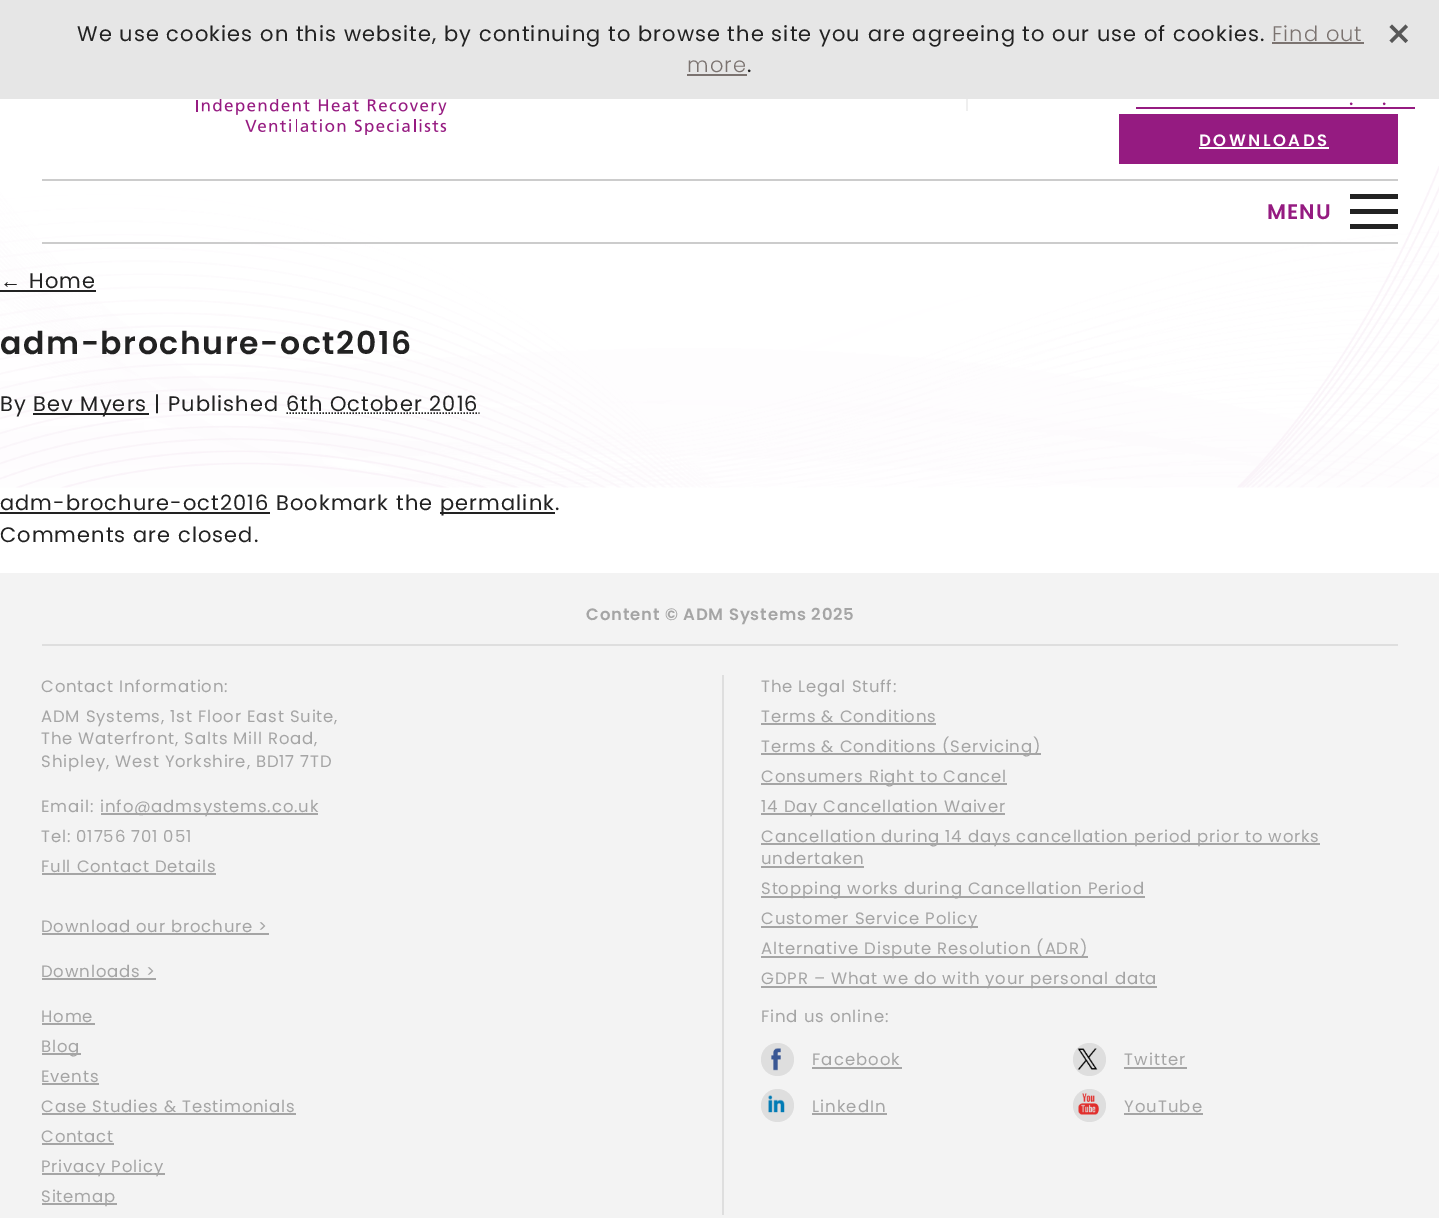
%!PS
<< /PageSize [1439 1218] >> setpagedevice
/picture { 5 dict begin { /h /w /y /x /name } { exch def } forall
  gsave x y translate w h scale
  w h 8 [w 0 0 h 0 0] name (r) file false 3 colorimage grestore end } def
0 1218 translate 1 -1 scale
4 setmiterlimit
1 setgray
0 0 1439 1218 rectfill
0.902 setgray
0 0 1439 99 rectfill
/Poppins-Regular [21 0 0 -21 0 0] selectfont
0.133 setgray
77 41 moveto 1.05 0 (We use cookies on this website, by continuing to browse the site you are agreeing to our use of cookies.) ashow
/Poppins-Light [21 0 0 -21 0 0] selectfont
0.482 0.451 0.439 setrgbcolor
1272 41 moveto 1.05 0 (Find out) ashow
1272 42 92 2 rectfill
687 72 moveto 1.05 0 (more) ashow
687 74 60 2 rectfill
/Poppins-Regular [21 0 0 -21 0 0] selectfont
0.133 setgray
747 72 moveto 1.05 0 (.) ashow
0.341 setgray
newpath 1389.5 40.5 moveto 1405.5 24.5 lineto 1408 27 lineto 1392 43 lineto closepath fill
newpath 1392 24.5 moveto 1408 40.5 lineto 1405.5 43 lineto 1389.5 27 lineto closepath fill
(img1.rgb) 0 166 1439 322 picture
(img2.rgb) 196 99 251 36 picture
0.937 setgray
966 99 2 12 rectfill
0.584 0.106 0.506 setrgbcolor
1349 105 moveto 1.05 0 (.) ashow
1136 107 279 2 rectfill
1382 105 moveto 1.05 0 (.) ashow
1119 114 279 50 rectfill
/Poppins-SemiBold [16.5 0 0 -16.5 0 0] selectfont
1 setgray
1199 146 moveto 2.5 0 (DOWNLOADS) ashow
1199 147 130 2 rectfill
0.8 setgray
42 179 1356 2 rectfill
42 242 1356 2 rectfill
0.133 setgray
1350 194 48 5 rectfill
/Poppins-SemiBold [21 0 0 -21 0 0] selectfont
0.584 0.106 0.506 setrgbcolor
1267 219 moveto 1.05 0 (MENU) ashow
0.133 setgray
1350 209 48 5 rectfill
1350 224 48 5 rectfill
/LiberationSans-Regular [21 0 0 -21 0 0] selectfont
0 288 moveto 1.05 0 (←) ashow
0 290 96 2 rectfill
/Poppins-Regular [21 0 0 -21 0 0] selectfont
29 288 moveto 1.05 0 (Home) ashow
/Poppins-SemiBold [31.5 0 0 -31.5 0 0] selectfont
0 354 moveto 1.6 0 (adm-brochure-oct2016) ashow
/Poppins-Regular [21 0 0 -21 0 0] selectfont
0 411 moveto 1.05 0 (By) ashow
33 413 116 2 rectfill
33 411 moveto 1.05 0 (Bev Myers | Published 6th October 2016) ashow
1.5 setlinewidth
[1.5 1.5] 0 setdash
newpath 286.5 413 moveto 479.5 413 lineto stroke
0 510 moveto 1.05 0 (adm-brochure-oct2016 Bookmark the) ashow
0 512 270 2 rectfill
440 512 115 2 rectfill
440 510 moveto 1.05 0 (permalink.) ashow
0 542 moveto 1.05 0 (Comments are closed.) ashow
0.953 setgray
0 573 1439 645 rectfill
0.871 setgray
42 644 1356 2 rectfill
/Poppins-SemiBold [16.5 0 0 -16.5 0 0] selectfont
0.647 setgray
586 620 moveto 0.83 0 (Content © ADM Systems 2025) ashow
/Poppins-Regular [16.5 0 0 -16.5 0 0] selectfont
41 692 moveto 0.83 0 (Contact Information:) ashow
0.871 setgray
722 675 2 540 rectfill
0.647 setgray
41 722 moveto 0.83 0 (ADM Systems, 1st Floor East Suite,) ashow
41 744 moveto 0.83 0 (The Waterfront, Salts Mill Road,) ashow
41 767 moveto 0.83 0 (Shipley, West Yorkshire, BD17 7TD) ashow
41 812 moveto 0.83 0 (Email:) ashow
101 813 217 2 rectfill
100 812 moveto 0.83 0 (info@admsystems.co.uk) ashow
41 842 moveto 0.83 0 (Tel: 01756 701 051) ashow
41 872 moveto 0.83 0 (Full Contact Details) ashow
42 873 174 2 rectfill
41 932 moveto 0.83 0 (Download our brochure >) ashow
42 933 227 2 rectfill
41 977 moveto 0.83 0 (Downloads >) ashow
42 978 114 2 rectfill
761 692 moveto 0.83 0 (The Legal Stuff:) ashow
761 722 moveto 0.83 0 (Terms & Conditions) ashow
761 723 175 2 rectfill
761 753 280 2 rectfill
761 752 moveto 0.83 0 (Terms & Conditions \(Servicing\)) ashow
761 783 246 2 rectfill
761 782 moveto 0.83 0 (Consumers Right to Cancel) ashow
761 813 244 2 rectfill
761 812 moveto 0.83 0 (14 Day Cancellation Waiver) ashow
761 843 559 2 rectfill
761 842 moveto 0.83 0 (Cancellation during 14 days cancellation period prior to works) ashow
761 864 moveto 0.83 0 (undertaken) ashow
761 866 103 2 rectfill
761 896 384 2 rectfill
761 894 moveto 0.83 0 (Stopping works during Cancellation Period) ashow
761 926 217 2 rectfill
761 924 moveto 0.83 0 (Customer Service Policy) ashow
761 956 327 2 rectfill
761 954 moveto 0.83 0 (Alternative Dispute Resolution \(ADR\)) ashow
761 986 396 2 rectfill
761 984 moveto 0.83 0 (GDPR – What we do with your personal data) ashow
41 1022 moveto 0.83 0 (Home) ashow
42 1023 53 2 rectfill
42 1053 39 2 rectfill
41 1052 moveto 0.83 0 (Blog) ashow
41 1082 moveto 0.83 0 (Events) ashow
42 1083 57 2 rectfill
41 1112 moveto 0.83 0 (Case Studies & Testimonials) ashow
42 1113 254 2 rectfill
41 1142 moveto 0.83 0 (Contact) ashow
42 1143 72 2 rectfill
42 1173 123 2 rectfill
41 1172 moveto 0.83 0 (Privacy Policy) ashow
42 1203 75 2 rectfill
41 1202 moveto 0.83 0 (Sitemap) ashow
761 1022 moveto 0.83 0 (Find us online:) ashow
0.871 setgray
newpath 777.5 1059.5 16.5 0 360 arc closepath fill
(img3.rgb) 771 1048 10 23 picture
0.647 setgray
812 1065 moveto 1.05 0 (Facebook) ashow
812 1067 90 2 rectfill
0.871 setgray
newpath 1089.5 1059.5 16.5 0 360 arc closepath fill
(img4.rgb) 1077 1048 21 22 picture
0.647 setgray
1124 1065 moveto 1.05 0 (Twitter) ashow
1124 1067 63 2 rectfill
0.871 setgray
newpath 777.5 1105.5 16.5 0 360 arc closepath fill
(img5.rgb) 768 1095 17 18 picture
0.647 setgray
812 1112 moveto 1.05 0 (LinkedIn) ashow
812 1113 75 2 rectfill
0.871 setgray
newpath 1089.5 1105.5 16.5 0 360 arc closepath fill
(img6.rgb) 1078 1093 21 22 picture
0.647 setgray
1124 1112 moveto 1.05 0 (YouTube) ashow
1124 1113 79 2 rectfill
showpage
